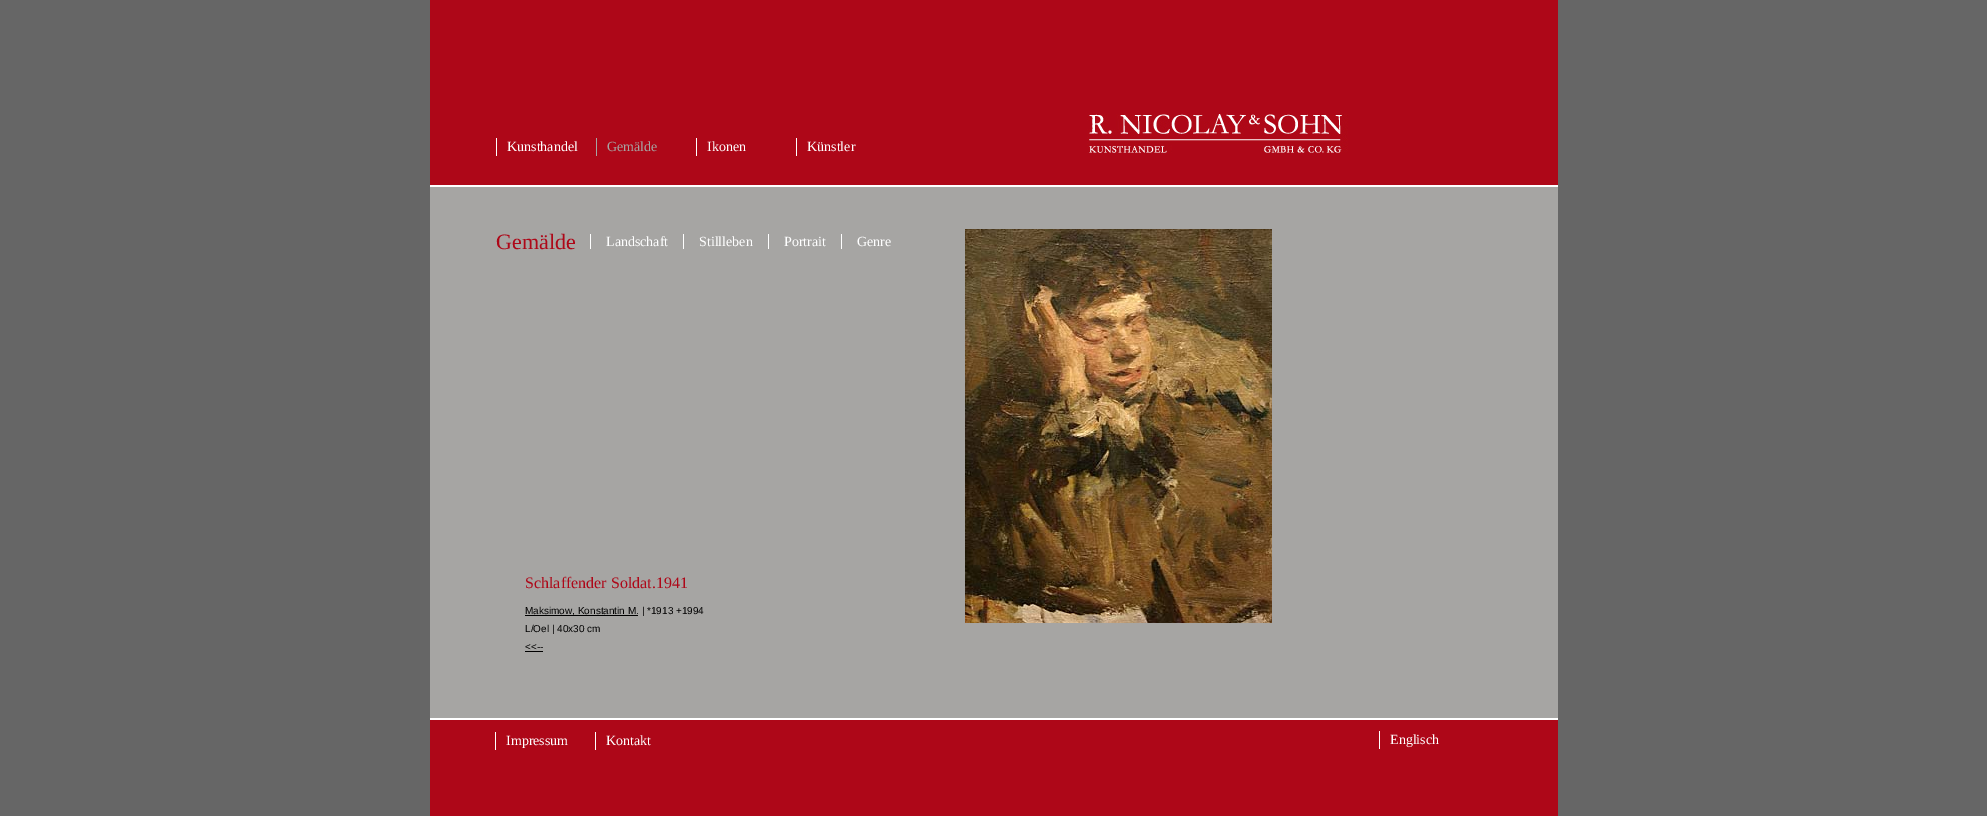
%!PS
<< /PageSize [1987 816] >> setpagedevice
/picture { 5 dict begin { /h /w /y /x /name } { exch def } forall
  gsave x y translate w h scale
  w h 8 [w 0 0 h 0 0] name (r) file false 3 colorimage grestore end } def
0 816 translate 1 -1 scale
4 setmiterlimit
0.4 setgray
0 0 1987 816 rectfill
0.651 0.647 0.639 setrgbcolor
430 187 1128 531 rectfill
0.682 0.027 0.094 setrgbcolor
430 0 1128 185 rectfill
1 setgray
496 138 1 18 rectfill
/LiberationSerif-Regular [14 0 0 -14 0 0] selectfont
507 151 moveto (Kunsthandel) show
0.651 0.647 0.639 setrgbcolor
596 138 1 18 rectfill
607 151 moveto (Gemälde) show
1 setgray
696 138 1 18 rectfill
707 151 moveto (Ikonen) show
796 138 1 18 rectfill
807 151 moveto (Künstler) show
(img1.rgb) 1087 114 261 39 picture
/LiberationSerif-Regular [22 0 0 -22 0 0] selectfont
0.682 0.027 0.094 setrgbcolor
496 249 moveto (Gemälde) show
/LiberationSerif-Regular [14 0 0 -14 0 0] selectfont
1 setgray
606 246 moveto (Landschaft) show
590 234 1 15 rectfill
699 246 moveto (Stillleben) show
683 234 1 15 rectfill
784 246 moveto (Portrait) show
768 234 1 15 rectfill
857 246 moveto (Genre) show
841 234 1 15 rectfill
430 185 1128 2 rectfill
/LiberationSerif-Regular [16 0 0 -16 0 0] selectfont
0.682 0.027 0.094 setrgbcolor
525 588 moveto (Schlaffender Soldat.1941) show
0 setgray
525 615 113 1 rectfill
/LiberationSans-Regular [10 0 0 -10 0 0] selectfont
525 614 moveto (Maksimow, Konstantin M. | *1913 +1994) show
525 632 moveto (L/Oel | 40x30 cm) show
525 650 moveto (<<--) show
525 651 18 1 rectfill
(img2.rgb) 965 229 307 394 picture
1 setgray
430 718 1128 2 rectfill
0.682 0.027 0.094 setrgbcolor
430 720 1128 96 rectfill
1 setgray
495 732 1 18 rectfill
/LiberationSerif-Regular [14 0 0 -14 0 0] selectfont
506 745 moveto (Impressum) show
595 732 1 18 rectfill
606 745 moveto (Kontakt) show
1379 731 1 18 rectfill
1390 744 moveto (Englisch) show
showpage
